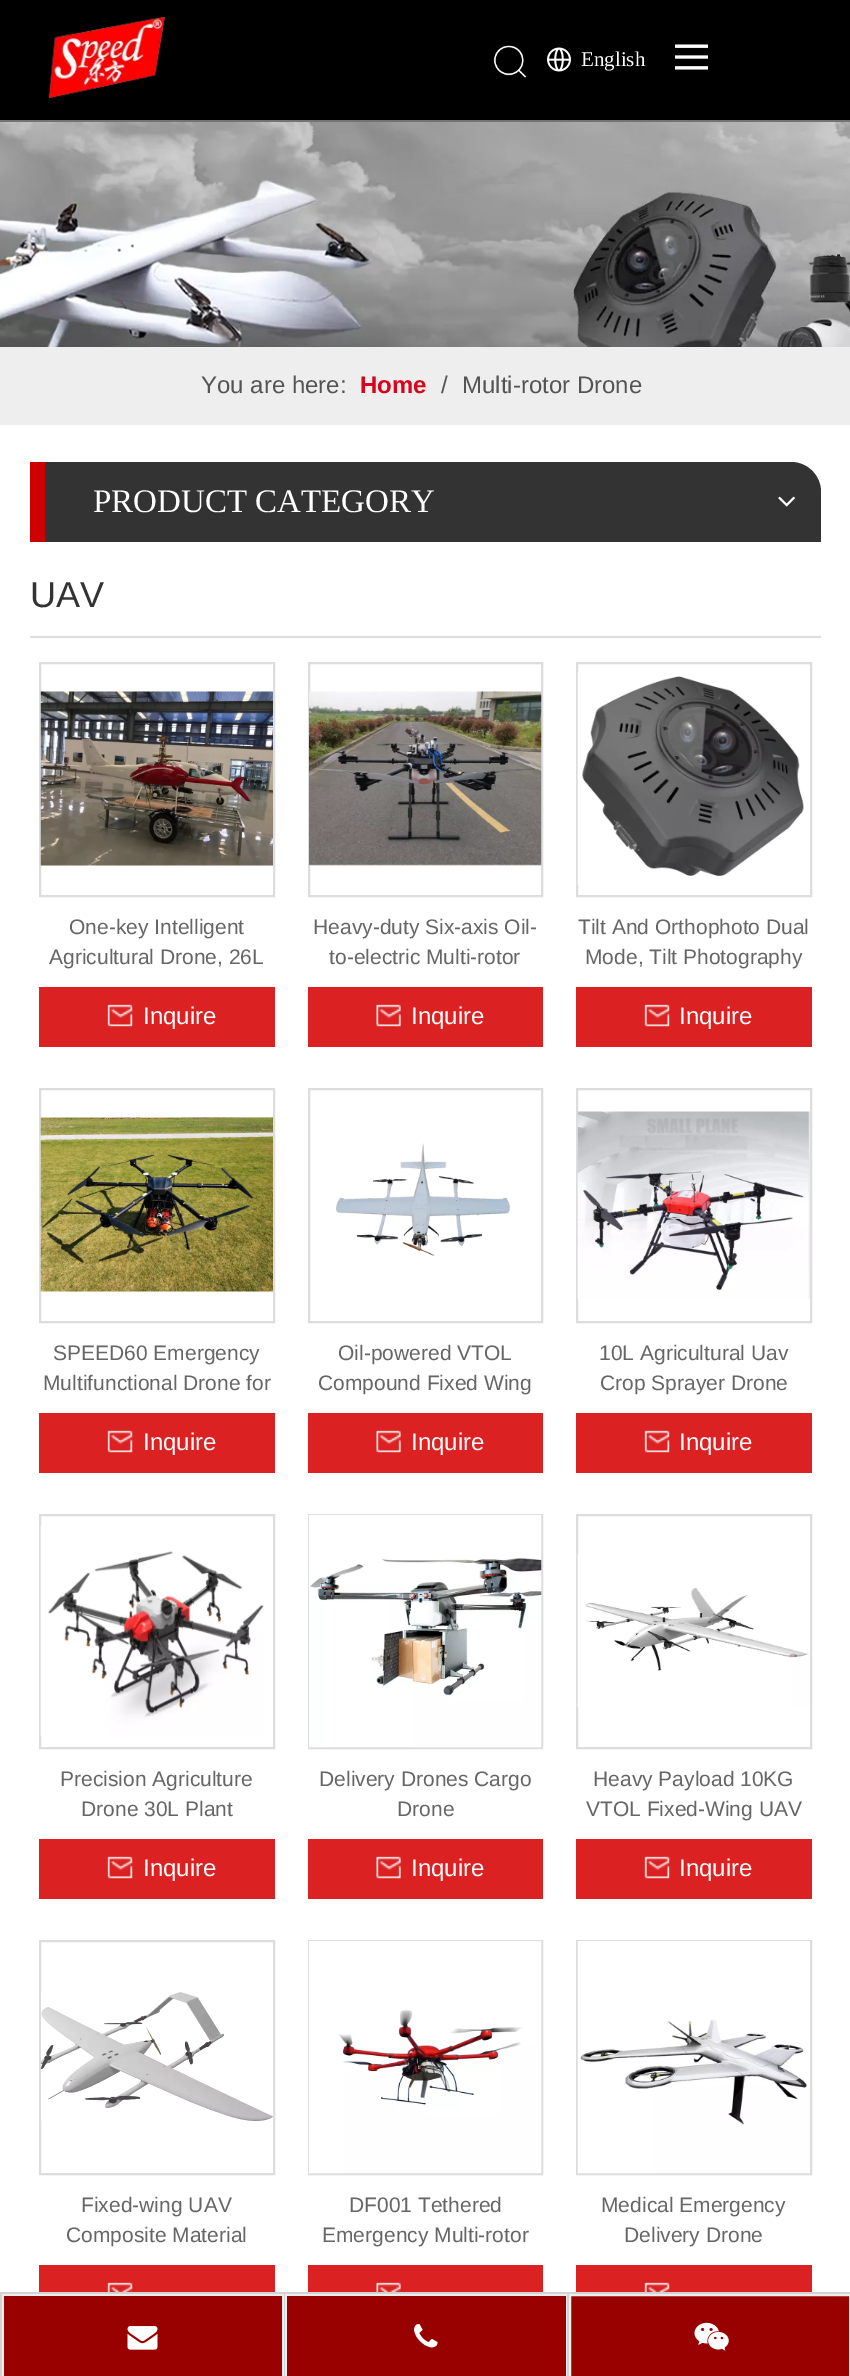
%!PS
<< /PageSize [850 2376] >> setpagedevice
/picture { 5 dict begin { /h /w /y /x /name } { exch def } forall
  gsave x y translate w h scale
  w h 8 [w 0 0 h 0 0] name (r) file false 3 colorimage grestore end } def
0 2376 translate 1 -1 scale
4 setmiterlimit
1 setgray
0 0 850 2376 rectfill
0 setgray
0 0 850 120 rectfill
0.451 setgray
0 120 850 2 rectfill
(img1.rgb) 48 16 117 83 picture
(img2.rgb) 493 45 34 33 picture
(img3.rgb) 547 47 24 25 picture
/LiberationSerif-Regular [21 0 0 -21 0 0] selectfont
1 setgray
581 66 moveto (English) show
(img4.rgb) 675 44 33 26 picture
(img5.rgb) 0 122 850 225 picture
0.933 setgray
0 347 850 78 rectfill
/LiberationSans-Regular [24 0 0 -24 0 0] selectfont
0.329 setgray
201 393 moveto (You are here:) show
/LiberationSans-Bold [24 0 0 -24 0 0] selectfont
0.839 0.016 0.114 setrgbcolor
360 393 moveto (Home) show
/LiberationSans-Regular [24 0 0 -24 0 0] selectfont
0.329 setgray
441 393 moveto (/) show
462 393 moveto (Multi-rotor Drone) show
0.2 setgray
newpath 45 462 moveto 791 462 lineto 807.5 462 821 475.5 821 492 curveto 821 542 lineto 45 542 lineto closepath fill
0.8 0 0 setrgbcolor
30 462 15 80 rectfill
/LiberationSerif-Regular [33 0 0 -33 0 0] selectfont
1 setgray
93 512 moveto (PRODUCT CATEGORY) show
(img6.rgb) 778 496 17 11 picture
0.867 setgray
30 636 791 2 rectfill
/LiberationSans-Regular [36 0 0 -36 0 0] selectfont
0.2 setgray
30 607 moveto (UAV) show
0.867 setgray
2 setlinewidth
40 663 234 233 rectstroke
(img7.rgb) 40 691 233 175 picture
/LiberationSans-Regular [21 0 0 -21 0 0] selectfont
0.4 setgray
69 934 moveto (One-key Intelligent) show
49 964 moveto (Agricultural Drone, 26L) show
0.859 0.129 0.129 setrgbcolor
39 987 236 60 rectfill
(img8.rgb) 107 1004 26 23 picture
/LiberationSans-Regular [24 0 0 -24 0 0] selectfont
1 setgray
143 1024 moveto (Inquire) show
0.867 setgray
309 663 233 233 rectstroke
(img9.rgb) 309 691 233 175 picture
/LiberationSans-Regular [21 0 0 -21 0 0] selectfont
0.4 setgray
313 934 moveto (Heavy-duty Six-axis Oil-) show
329 964 moveto (to-electric Multi-rotor) show
0.859 0.129 0.129 setrgbcolor
308 987 235 60 rectfill
(img10.rgb) 376 1004 25 23 picture
/LiberationSans-Regular [24 0 0 -24 0 0] selectfont
1 setgray
411 1024 moveto (Inquire) show
0.867 setgray
577 663 234 233 rectstroke
(img11.rgb) 577 672 227 213 picture
/LiberationSans-Regular [21 0 0 -21 0 0] selectfont
0.4 setgray
578 934 moveto (Tilt And Orthophoto Dual) show
585 964 moveto (Mode, Tilt Photography) show
0.859 0.129 0.129 setrgbcolor
576 987 236 60 rectfill
(img12.rgb) 644 1004 26 23 picture
/LiberationSans-Regular [24 0 0 -24 0 0] selectfont
1 setgray
679 1024 moveto (Inquire) show
0.867 setgray
40 1089 234 233 rectstroke
(img13.rgb) 40 1117 233 175 picture
/LiberationSans-Regular [21 0 0 -21 0 0] selectfont
0.4 setgray
53 1360 moveto (SPEED60 Emergency) show
43 1390 moveto (Multifunctional Drone for) show
0.859 0.129 0.129 setrgbcolor
39 1413 236 60 rectfill
(img8.rgb) 107 1430 26 23 picture
/LiberationSans-Regular [24 0 0 -24 0 0] selectfont
1 setgray
143 1450 moveto (Inquire) show
0.867 setgray
309 1089 233 233 rectstroke
(img14.rgb) 336 1143 175 113 picture
/LiberationSans-Regular [21 0 0 -21 0 0] selectfont
0.4 setgray
338 1360 moveto (Oil-powered VTOL) show
318 1390 moveto (Compound Fixed Wing) show
0.859 0.129 0.129 setrgbcolor
308 1413 235 60 rectfill
(img10.rgb) 376 1430 25 23 picture
/LiberationSans-Regular [24 0 0 -24 0 0] selectfont
1 setgray
411 1450 moveto (Inquire) show
0.867 setgray
577 1089 234 233 rectstroke
(img15.rgb) 577 1111 233 188 picture
/LiberationSans-Regular [21 0 0 -21 0 0] selectfont
0.4 setgray
599 1360 moveto (10L Agricultural Uav) show
600 1390 moveto (Crop Sprayer Drone) show
0.859 0.129 0.129 setrgbcolor
576 1413 236 60 rectfill
(img12.rgb) 644 1430 26 23 picture
/LiberationSans-Regular [24 0 0 -24 0 0] selectfont
1 setgray
679 1450 moveto (Inquire) show
0.867 setgray
40 1515 234 233 rectstroke
(img16.rgb) 40 1525 224 211 picture
/LiberationSans-Regular [21 0 0 -21 0 0] selectfont
0.4 setgray
60 1786 moveto (Precision Agriculture) show
81 1816 moveto (Drone 30L Plant) show
0.859 0.129 0.129 setrgbcolor
39 1839 236 60 rectfill
(img8.rgb) 107 1856 26 23 picture
/LiberationSans-Regular [24 0 0 -24 0 0] selectfont
1 setgray
143 1876 moveto (Inquire) show
0.867 setgray
309 1515 233 233 rectstroke
(img17.rgb) 309 1515 233 233 picture
/LiberationSans-Regular [21 0 0 -21 0 0] selectfont
0.4 setgray
319 1786 moveto (Delivery Drones Cargo) show
397 1816 moveto (Drone) show
0.859 0.129 0.129 setrgbcolor
308 1839 235 60 rectfill
(img10.rgb) 376 1856 25 23 picture
/LiberationSans-Regular [24 0 0 -24 0 0] selectfont
1 setgray
411 1876 moveto (Inquire) show
0.867 setgray
577 1515 234 233 rectstroke
(img18.rgb) 577 1554 232 153 picture
/LiberationSans-Regular [21 0 0 -21 0 0] selectfont
0.4 setgray
593 1786 moveto (Heavy Payload 10KG) show
586 1816 moveto (VTOL Fixed-Wing UAV) show
0.859 0.129 0.129 setrgbcolor
576 1839 236 60 rectfill
(img12.rgb) 644 1856 26 23 picture
/LiberationSans-Regular [24 0 0 -24 0 0] selectfont
1 setgray
679 1876 moveto (Inquire) show
0.867 setgray
40 1941 234 233 rectstroke
(img19.rgb) 40 1992 233 129 picture
/LiberationSans-Regular [21 0 0 -21 0 0] selectfont
0.4 setgray
81 2212 moveto (Fixed-wing UAV) show
66 2242 moveto (Composite Material) show
0.859 0.129 0.129 setrgbcolor
39 2265 236 27 rectfill
(img20.rgb) 107 2282 26 10 picture
0.867 setgray
309 1941 233 233 rectstroke
(img21.rgb) 309 1941 233 233 picture
0.4 setgray
349 2212 moveto (DF001 Tethered) show
322 2242 moveto (Emergency Multi-rotor) show
0.859 0.129 0.129 setrgbcolor
308 2265 235 27 rectfill
(img22.rgb) 376 2282 25 10 picture
0.867 setgray
577 1941 234 233 rectstroke
(img23.rgb) 577 1941 233 233 picture
0.4 setgray
601 2212 moveto (Medical Emergency) show
624 2242 moveto (Delivery Drone) show
0.859 0.129 0.129 setrgbcolor
576 2265 236 27 rectfill
(img24.rgb) 644 2282 26 10 picture
0.827 setgray
0 2292 850 2 rectfill
0 2294 2 82 rectfill
0.6 0 0 setrgbcolor
4 2296 278 80 rectfill
0.933 setgray
2 2294 282 2 rectfill
282 2294 2 82 rectfill
2 2294 2 82 rectfill
(img25.rgb) 127 2326 31 24 picture
0.827 setgray
284 2294 1 82 rectfill
0.6 0 0 setrgbcolor
287 2296 279 80 rectfill
0.933 setgray
285 2294 282 2 rectfill
566 2294 1 82 rectfill
285 2294 2 82 rectfill
(img26.rgb) 414 2324 24 24 picture
0.827 setgray
567 2294 2 82 rectfill
0.6 0 0 setrgbcolor
newpath 570 2295 moveto 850 2295 lineto 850 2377 lineto 570 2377 lineto closepath gsave fill grestore
0.933 setgray
stroke
(img27.rgb) 694 2322 35 29 picture
showpage
